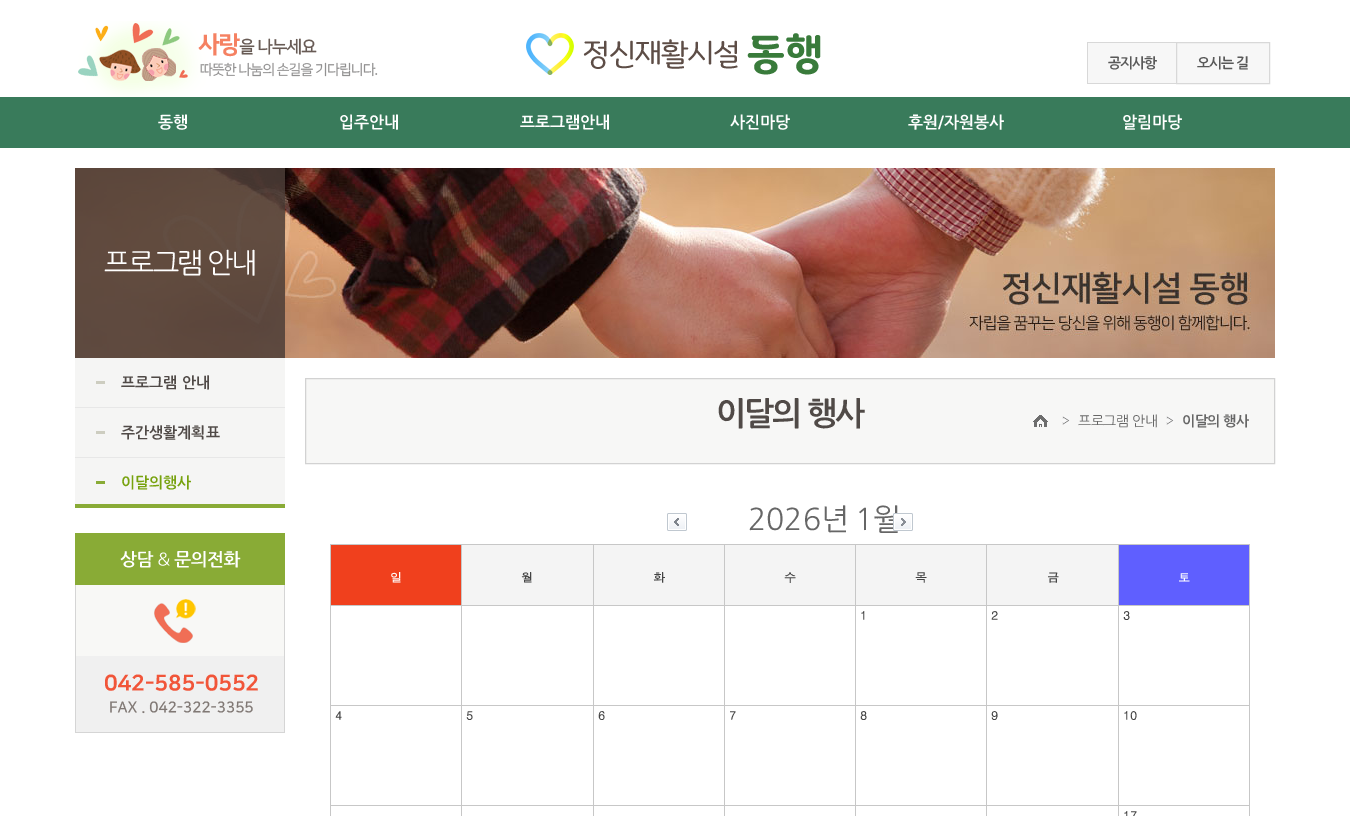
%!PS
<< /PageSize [1350 816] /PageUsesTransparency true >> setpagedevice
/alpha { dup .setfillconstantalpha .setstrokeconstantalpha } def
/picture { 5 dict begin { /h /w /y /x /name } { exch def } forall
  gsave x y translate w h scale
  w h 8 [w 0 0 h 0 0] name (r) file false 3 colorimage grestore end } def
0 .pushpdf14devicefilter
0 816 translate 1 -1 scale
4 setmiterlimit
1 setgray
0 0 1350 816 rectfill
0.224 0.482 0.357 setrgbcolor
0 97 1350 51 rectfill
(img1.rgb) 78 21 300 76 picture
(img2.rgb) 526 33 295 42 picture
0.969 setgray
1088 43 88 40 rectfill
0.847 setgray
1087 42 89 1 rectfill
1087 83 89 1 rectfill
1087 42 1 42 rectfill
/NanumGothic-Bold [14 0 0 -14 0 0] selectfont
0.349 setgray
1108 68 moveto -1 0 (공지사항) ashow
0.969 setgray
newpath 1176.5 42.5 moveto 1269.5 42.5 lineto 1269.5 83.5 lineto 1176.5 83.5 lineto closepath gsave fill grestore
0.847 setgray
stroke
0.349 setgray
1197 68 moveto -1 0 (오시는 길) ashow
/NanumGothic-Bold [16 0 0 -16 0 0] selectfont
1 setgray
158 128 moveto (동행) show
339 128 moveto (입주안내) show
520 128 moveto (프로그램안내) show
730 128 moveto (사진마당) show
908 128 moveto (후원/자원봉사) show
1122 128 moveto (알림마당) show
(img3.rgb) 75 168 1200 190 picture
0.85 alpha
0.298 0.239 0.216 setrgbcolor
75 168 210 190 rectfill
/NanumGothic-Regular [28 0 0 -28 0 0] selectfont
1 alpha
1 setgray
104 273 moveto -2 0 (프로그램 안내) ashow
(img4.rgb) 75 358 210 50 picture
/NanumGothic-Bold [15 0 0 -15 0 0] selectfont
0.314 0.29 0.278 setrgbcolor
121 388 moveto (프로그램 안내) show
(img4.rgb) 75 408 210 50 picture
121 438 moveto (주간생활계획표) show
(img5.rgb) 75 458 210 23 picture
(img6.rgb) 75 481 210 27 picture
0.467 0.635 0.055 setrgbcolor
121 488 moveto (이달의행사) show
(img7.rgb) 75 533 210 200 picture
0.969 0.969 0.965 setrgbcolor
newpath 305.5 378.5 moveto 1274.5 378.5 lineto 1274.5 463.5 lineto 305.5 463.5 lineto closepath gsave fill grestore
0.824 setgray
stroke
/NanumGothic-Bold [32 0 0 -32 0 0] selectfont
0.314 0.29 0.278 setrgbcolor
716 425 moveto -2 0 (이달의 행사) ashow
(img8.rgb) 1033 415 15 12 picture
(img9.rgb) 1062 416 8 9 picture
/NanumGothic-Regular [14 0 0 -14 0 0] selectfont
0.4 setgray
1078 426 moveto -0.5 0 (프로그램 안내) ashow
(img9.rgb) 1166 416 8 9 picture
/NanumGothic-Bold [14 0 0 -14 0 0] selectfont
1182 426 moveto -0.5 0 (이달의 행사) ashow
(img10.rgb) 667 513 20 18 picture
/NanumGothic-Regular [30 0 0 -30 0 0] selectfont
748 530 moveto -2 0 32 (2026년 1월) widthshow
(img11.rgb) 893 513 20 18 picture
0.78 setgray
330 544 920 1 rectfill
1249 544 1 272 rectfill
330 544 1 272 rectfill
0.941 0.251 0.114 setrgbcolor
331 545 130 60 rectfill
0.78 setgray
1118 805 1 11 rectfill
1118 805 132 1 rectfill
1118 705 1 101 rectfill
1118 705 132 1 rectfill
1118 605 1 101 rectfill
1118 605 132 1 rectfill
1118 544 1 62 rectfill
986 805 1 11 rectfill
986 805 133 1 rectfill
986 705 1 101 rectfill
986 705 133 1 rectfill
986 605 1 101 rectfill
986 605 133 1 rectfill
986 544 1 62 rectfill
855 805 1 11 rectfill
855 805 132 1 rectfill
855 705 1 101 rectfill
855 705 132 1 rectfill
855 605 1 101 rectfill
855 605 132 1 rectfill
855 544 1 62 rectfill
724 805 1 11 rectfill
724 805 132 1 rectfill
724 705 1 101 rectfill
724 705 132 1 rectfill
724 605 1 101 rectfill
724 605 132 1 rectfill
724 544 1 62 rectfill
593 805 1 11 rectfill
593 805 132 1 rectfill
593 705 1 101 rectfill
593 705 132 1 rectfill
593 605 1 101 rectfill
593 605 132 1 rectfill
593 544 1 62 rectfill
461 805 1 11 rectfill
461 805 133 1 rectfill
461 705 1 101 rectfill
461 705 133 1 rectfill
461 605 1 101 rectfill
461 605 133 1 rectfill
461 544 1 62 rectfill
330 605 132 1 rectfill
/Dotum-Bold [12 0 0 -12 0 0] selectfont
1 setgray
390 582 moveto (일) show
0.957 setgray
462 545 131 60 rectfill
0.267 setgray
521 582 moveto (월) show
0.957 setgray
594 545 130 60 rectfill
0.267 setgray
653 582 moveto (화) show
0.957 setgray
725 545 130 60 rectfill
0.267 setgray
784 582 moveto (수) show
0.957 setgray
856 545 130 60 rectfill
0.267 setgray
915 582 moveto (목) show
0.957 setgray
987 545 131 60 rectfill
0.267 setgray
1047 582 moveto (금) show
0.373 0.373 1 setrgbcolor
1119 545 130 60 rectfill
1 setgray
1178 582 moveto (토) show
0.78 setgray
330 705 132 1 rectfill
0.267 setgray
860 620 moveto (1) show
991 620 moveto (2) show
1123 620 moveto (3) show
0.78 setgray
330 805 132 1 rectfill
0.267 setgray
335 720 moveto (4) show
466 720 moveto (5) show
598 720 moveto (6) show
729 720 moveto (7) show
860 720 moveto (8) show
991 720 moveto (9) show
1123 720 moveto (10) show
1123 820 moveto (17) show
.poppdf14devicefilter showpage
